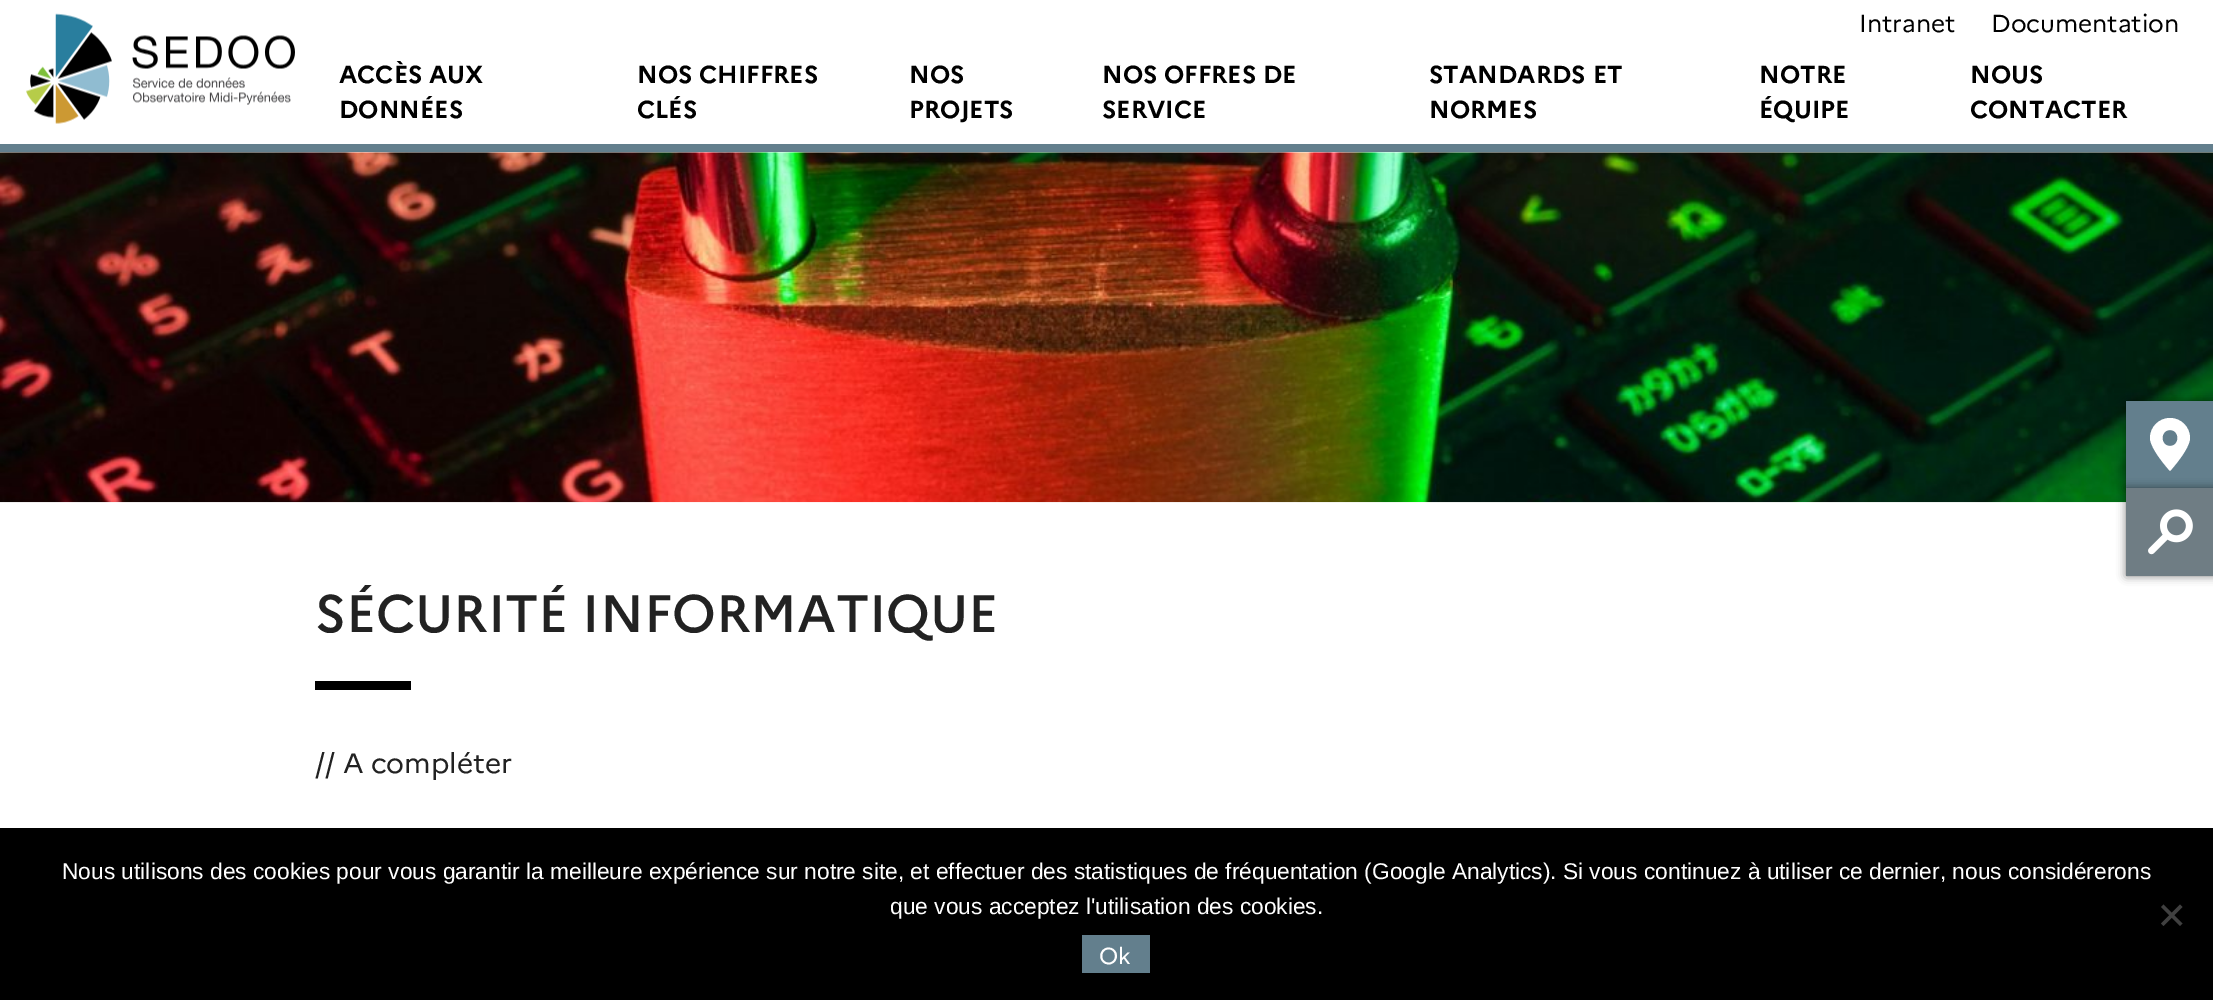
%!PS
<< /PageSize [2213 1000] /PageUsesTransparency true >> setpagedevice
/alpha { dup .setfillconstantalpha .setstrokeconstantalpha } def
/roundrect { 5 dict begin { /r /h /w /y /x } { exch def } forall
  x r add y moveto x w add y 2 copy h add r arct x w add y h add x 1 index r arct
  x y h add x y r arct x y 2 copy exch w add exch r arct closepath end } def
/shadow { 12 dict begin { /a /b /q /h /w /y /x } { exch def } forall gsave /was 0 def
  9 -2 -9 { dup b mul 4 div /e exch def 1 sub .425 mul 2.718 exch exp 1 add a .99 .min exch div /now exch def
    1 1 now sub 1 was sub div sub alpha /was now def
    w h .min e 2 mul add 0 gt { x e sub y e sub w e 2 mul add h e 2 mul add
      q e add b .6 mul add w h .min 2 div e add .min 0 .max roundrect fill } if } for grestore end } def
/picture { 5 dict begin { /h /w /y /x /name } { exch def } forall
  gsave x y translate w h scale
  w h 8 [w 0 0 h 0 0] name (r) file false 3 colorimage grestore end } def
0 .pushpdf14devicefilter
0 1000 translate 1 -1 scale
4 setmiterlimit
1 setgray
0 0 2213 1000 rectfill
0.388 0.498 0.553 setrgbcolor
0 144 2213 8 rectfill
(img1.rgb) 26 13 269 111 picture
/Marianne-Regular [24.5 0 0 -24.5 0 0] selectfont
0 setgray
1859 32 moveto (Intranet) show
1991 32 moveto (Documentation) show
/Marianne-Bold [24.5 0 0 -24.5 0 0] selectfont
339 83 moveto (ACCÈS AUX) show
339 118 moveto (DONNÉES) show
637 83 moveto (NOS CHIFFRES) show
637 118 moveto (CLÉS) show
909 83 moveto (NOS) show
909 118 moveto (PROJETS) show
1102 83 moveto (NOS OFFRES DE) show
1102 118 moveto (SERVICE) show
1429 83 moveto (STANDARDS ET) show
1429 118 moveto (NORMES) show
1759 83 moveto (NOTRE) show
1759 118 moveto (ÉQUIPE) show
1970 83 moveto (NOUS) show
1970 118 moveto (CONTACTER) show
(img2.rgb) 0 152 2213 351 picture
/Marianne-Medium [52.5 0 0 -52.5 0 0] selectfont
0.133 setgray
315 632 moveto (SÉCURITÉ INFORMATIQUE) show
0 setgray
315 681 96 9 rectfill
/Marianne-Regular [28 0 0 -28 0 0] selectfont
0.133 setgray
315 773 moveto (// A compléter) show
0 setgray
2126 401 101 87 0 4.5 0.5 shadow
0.388 0.498 0.553 setrgbcolor
2126 401 87 87 rectfill
1 setgray
newpath 2170 418 moveto 2159 418 2150 427 2150 438 curveto 2150 449 2170 471 2170 471 curveto 2170 471 2190 449 2190 438 curveto 2190 427 2181 418 2170 418 curveto closepath 2170 446 moveto 2160 446 2160 430 2170 430 curveto 2180 430 2180 446 2170 446 curveto closepath fill
0 setgray
2126 488 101 88 0 4.5 0.5 shadow
0.435 0.49 0.518 setrgbcolor
2126 488 87 88 rectfill
(img3.rgb) 2148 509 45 46 picture
0 setgray
0 828 2213 172 rectfill
/LiberationSans-Regular [22.75 0 0 -22.75 0 0] selectfont
1 setgray
62 879 moveto (Nous utilisons des cookies pour vous garantir la meilleure expérience sur notre site, et effectuer des statistiques de fréquentation \(Google Analytics\). Si vous continuez à utiliser ce dernier, nous considérerons) show
890 914 moveto (que vous acceptez l'utilisation des cookies.) show
0.251 setgray
newpath 2180 904.5 moveto 2182.5 907 lineto 2163.5 926 lineto 2161 923.5 lineto closepath fill
newpath 2161 907 moveto 2163.5 904.5 lineto 2182.5 923.5 lineto 2180 926 lineto closepath fill
0.388 0.498 0.553 setrgbcolor
1082 935 68 38 rectfill
/Marianne-Regular [23 0 0 -23 0 0] selectfont
1 setgray
1099 964 moveto (Ok) show
.poppdf14devicefilter showpage
